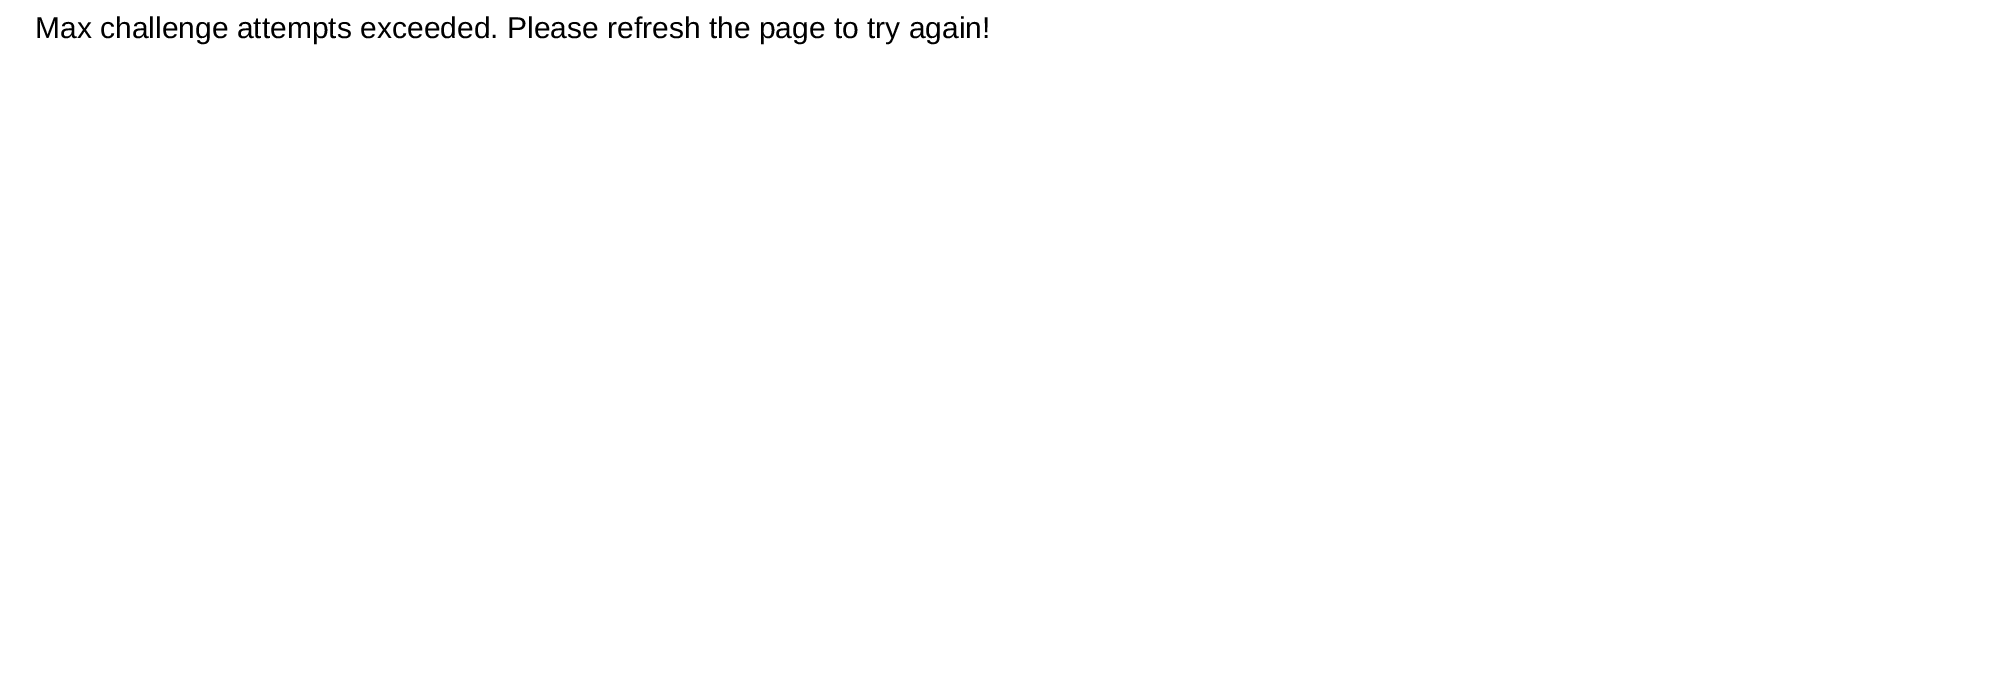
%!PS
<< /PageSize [2008 682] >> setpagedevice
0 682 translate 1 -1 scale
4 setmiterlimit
1 setgray
0 0 2008 682 rectfill
/LiberationSans-Regular [30 0 0 -30 0 0] selectfont
0 setgray
35 38 moveto (Max challenge attempts exceeded. Please refresh the page to try again!) show
showpage
